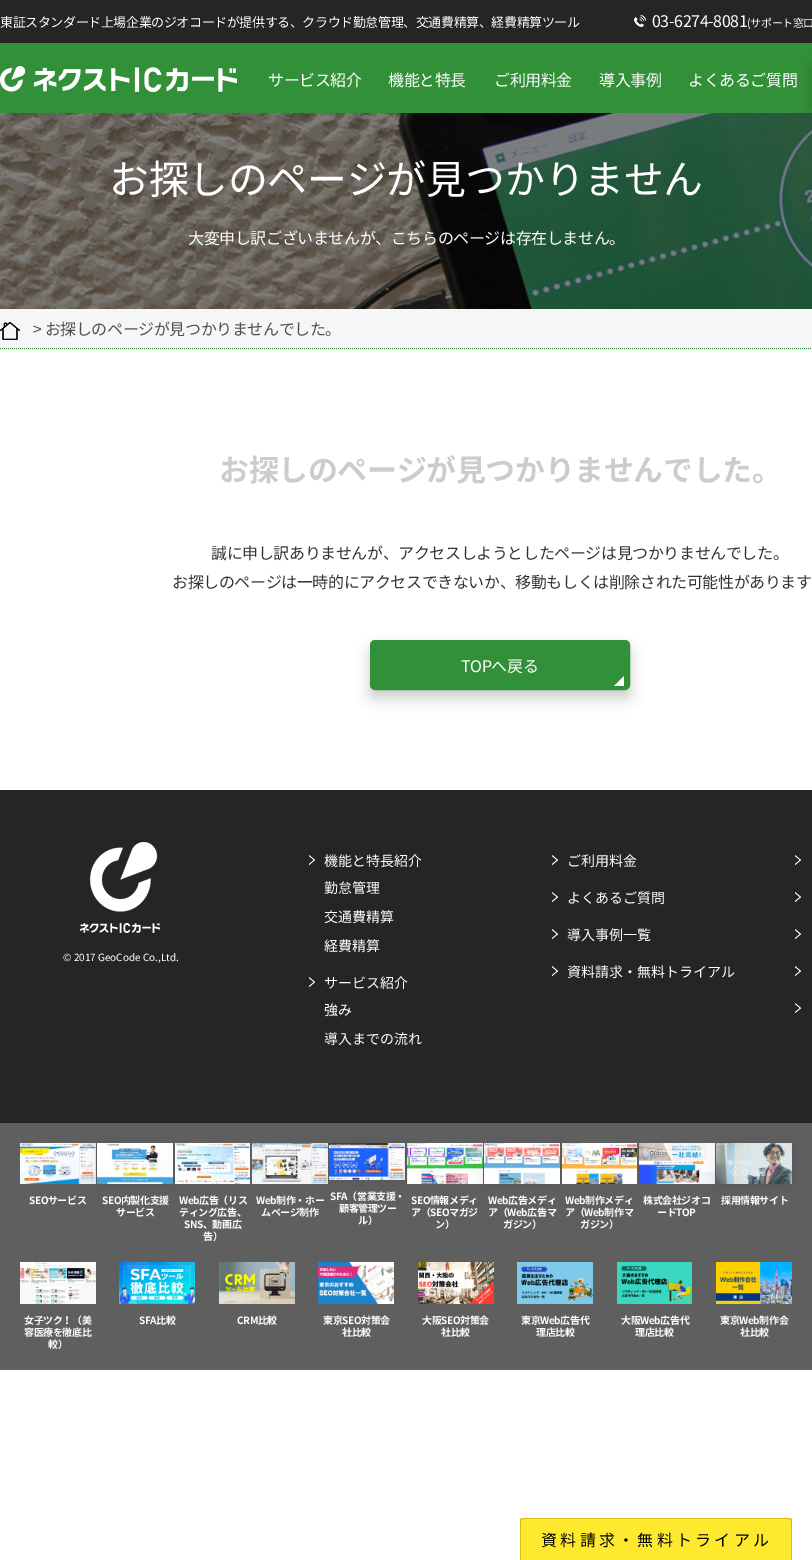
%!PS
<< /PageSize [812 1560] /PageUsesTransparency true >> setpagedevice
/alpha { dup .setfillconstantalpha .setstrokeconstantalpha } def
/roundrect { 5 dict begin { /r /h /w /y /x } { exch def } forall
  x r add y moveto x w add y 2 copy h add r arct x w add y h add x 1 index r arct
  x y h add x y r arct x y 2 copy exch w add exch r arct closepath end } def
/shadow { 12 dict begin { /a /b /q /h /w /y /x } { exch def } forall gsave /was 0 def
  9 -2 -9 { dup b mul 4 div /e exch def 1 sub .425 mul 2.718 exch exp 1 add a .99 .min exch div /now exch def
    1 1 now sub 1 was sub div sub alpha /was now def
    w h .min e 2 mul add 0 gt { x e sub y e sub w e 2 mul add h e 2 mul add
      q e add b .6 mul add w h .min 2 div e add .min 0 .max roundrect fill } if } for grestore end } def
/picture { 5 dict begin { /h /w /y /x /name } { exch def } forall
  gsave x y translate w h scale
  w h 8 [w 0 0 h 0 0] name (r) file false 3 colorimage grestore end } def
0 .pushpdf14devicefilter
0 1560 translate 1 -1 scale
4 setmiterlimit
1 setgray
0 0 812 1560 rectfill
0.196 0.565 0.224 setrgbcolor
0 43 812 70 rectfill
0.145 setgray
0 0 812 43 rectfill
/NotoSansJP-Regular [13 0 0 -13 0 0] selectfont
1 setgray
0 27 moveto -0.4 0 (東証スタンダード上場企業のジオコードが提供する、クラウド勤怠管理、交通費精算、経費精算ツール) ashow
(img1.rgb) 634 15 12 12 picture
/NotoSansJP-Regular [16 0 0 -16 0 0] selectfont
652 27 moveto -0.4 0 (03-6274-8081) ashow
/NotoSansJP-Regular [11 0 0 -11 0 0] selectfont
747 27 moveto -0.4 0 (\(サポート窓口) ashow
(img2.rgb) 0 66 237 26 picture
/NotoSansJP-Regular [16 0 0 -16 0 0] selectfont
268 86 moveto -0.4 0 (サービス紹介) ashow
388 86 moveto -0.4 0 (機能と特長) ashow
494 86 moveto -0.4 0 (ご利用料金) ashow
599 86 moveto -0.4 0 (導入事例) ashow
688 86 moveto -0.4 0 (よくあるご質問) ashow
(img3.rgb) 0 113 812 196 picture
0 setgray
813 63 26 50 6 7 0.2 shadow
/NotoSansJP-Regular [40 0 0 -40 0 0] selectfont
1 setgray
109 194 moveto -0.4 0 (お探しのページが見つかりません) ashow
/NotoSansJP-Regular [16 0 0 -16 0 0] selectfont
188 244 moveto -0.4 0 (大変申し訳ございませんが、こちらのページは存在しません。) ashow
0.965 setgray
0 309 812 40 rectfill
0.196 0.565 0.224 setrgbcolor
[1 1] 0 setdash
newpath 0 348.5 moveto 812 348.5 lineto stroke
(img4.rgb) 0 322 20 18 picture
0.314 setgray
33 335 moveto -0.4 0 (> お探しのページが見つかりませんでした。) ashow
/NotoSansJP-Bold [30 0 0 -30 0 0] selectfont
0.8 setgray
219 481 moveto -0.4 0 (お探しのページが見つかりませんでした。) ashow
/NotoSansJP-Regular [16 0 0 -16 0 0] selectfont
0.2 setgray
211 559 moveto -0.4 0 (誠に申し訳ありませんが、アクセスしようとしたページは見つかりませんでした。) ashow
172 588 moveto -0.4 0 (お探しのページは一時的にアクセスできないか、移動もしくは削除された可能性があります) ashow
0 setgray
370 648 260 50 5 7 0.2 shadow
0.196 0.565 0.224 setrgbcolor
371 641 258 48 4 roundrect gsave fill grestore
2 setlinewidth
[] 0 setdash
stroke
1 setgray
461 672 moveto -0.4 0 (TOPへ戻る) ashow
newpath 624 686 moveto 614 686 lineto 624 676 lineto closepath fill
0.145 setgray
0 790 812 333 rectfill
(img5.rgb) 80 842 80 91 picture
/NotoSansJP-Regular [10 0 0 -10 0 0] selectfont
1 setgray
63 961 moveto (© 2017 GeoCode Co.,Ltd.) show
(img6.rgb) 309 855 6 10 picture
/NotoSansJP-Regular [14 0 0 -14 0 0] selectfont
324 866 moveto (機能と特長紹介) show
324 893 moveto (勤怠管理) show
324 922 moveto (交通費精算) show
324 951 moveto (経費精算) show
(img6.rgb) 309 977 6 10 picture
324 988 moveto (サービス紹介) show
324 1015 moveto (強み) show
324 1044 moveto (導入までの流れ) show
(img6.rgb) 552 855 6 10 picture
567 866 moveto (ご利用料金) show
(img6.rgb) 552 892 6 10 picture
567 903 moveto (よくあるご質問) show
(img6.rgb) 552 929 6 10 picture
567 940 moveto (導入事例一覧) show
(img6.rgb) 552 966 6 10 picture
567 977 moveto (資料請求・無料トライアル) show
(img6.rgb) 795 855 6 10 picture
(img6.rgb) 795 892 6 10 picture
(img6.rgb) 795 929 6 10 picture
(img6.rgb) 795 966 6 10 picture
(img6.rgb) 795 1003 6 10 picture
0.373 setgray
0 1123 812 247 rectfill
(img7.rgb) 20 1143 76 41 picture
/NotoSansJP-Bold [10 0 0 -10 0 0] selectfont
1 setgray
29 1204 moveto -0.4 0 (SEOサービス) ashow
0 setgray
97 1143 76 41 0 8 0.1 shadow
(img8.rgb) 97 1143 76 41 picture
1 setgray
102 1204 moveto -0.4 0 (SEO内製化支援) ashow
116 1216 moveto -0.4 0 (サービス) ashow
(img9.rgb) 175 1143 75 41 picture
179 1204 moveto -0.4 0 (Web広告（リス) ashow
179 1216 moveto -0.4 0 (ティング広告、) ashow
184 1228 moveto -0.4 0 (SNS、動画広) ashow
203 1240 moveto -0.4 0 (告）) ashow
(img10.rgb) 252 1143 76 41 picture
256 1204 moveto -0.4 0 (Web制作・ホー) ashow
261 1216 moveto -0.4 0 (ムページ制作) ashow
0 setgray
329 1143 76 37 0 8 0.1 shadow
(img11.rgb) 329 1143 76 37 picture
1 setgray
330 1200 moveto -0.4 0 (SFA（営業支援・) ashow
339 1212 moveto -0.4 0 (顧客管理ツー) ashow
358 1224 moveto -0.4 0 (ル）) ashow
(img12.rgb) 407 1143 76 41 picture
411 1204 moveto -0.4 0 (SEO情報メディ) ashow
411 1216 moveto -0.4 0 (ア（SEOマガジ) ashow
435 1228 moveto -0.4 0 (ン）) ashow
0 setgray
484 1143 76 41 0 8 0.1 shadow
(img13.rgb) 484 1143 76 41 picture
1 setgray
488 1204 moveto -0.4 0 (Web広告メディ) ashow
488 1216 moveto -0.4 0 (ア（Web広告マ) ashow
503 1228 moveto -0.4 0 (ガジン）) ashow
(img14.rgb) 562 1143 75 41 picture
565 1204 moveto -0.4 0 (Web制作メディ) ashow
565 1216 moveto -0.4 0 (ア（Web制作マ) ashow
580 1228 moveto -0.4 0 (ガジン）) ashow
(img15.rgb) 639 1143 76 41 picture
643 1204 moveto -0.4 0 (株式会社ジオコ) ashow
657 1216 moveto -0.4 0 (ードTOP) ashow
0 setgray
716 1143 76 41 0 8 0.1 shadow
(img16.rgb) 716 1143 76 41 picture
1 setgray
721 1204 moveto -0.4 0 (採用情報サイト) ashow
(img17.rgb) 20 1262 76 42 picture
24 1324 moveto -0.4 0 (女子ツク！（美) ashow
24 1336 moveto -0.4 0 (容医療を徹底比) ashow
48 1348 moveto -0.4 0 (較）) ashow
(img18.rgb) 119 1262 76 42 picture
139 1324 moveto -0.4 0 (SFA比較) ashow
(img19.rgb) 219 1262 76 42 picture
237 1324 moveto -0.4 0 (CRM比較) ashow
(img20.rgb) 318 1262 76 42 picture
323 1324 moveto -0.4 0 (東京SEO対策会) ashow
342 1336 moveto -0.4 0 (社比較) ashow
(img21.rgb) 418 1262 76 42 picture
422 1324 moveto -0.4 0 (大阪SEO対策会) ashow
441 1336 moveto -0.4 0 (社比較) ashow
(img22.rgb) 517 1262 76 42 picture
521 1324 moveto -0.4 0 (東京Web広告代) ashow
536 1336 moveto -0.4 0 (理店比較) ashow
(img23.rgb) 617 1262 75 42 picture
621 1324 moveto -0.4 0 (大阪Web広告代) ashow
635 1336 moveto -0.4 0 (理店比較) ashow
(img24.rgb) 716 1262 76 42 picture
720 1324 moveto -0.4 0 (東京Web制作会) ashow
740 1336 moveto -0.4 0 (社比較) ashow
1 0.914 0.18 setrgbcolor
newpath 523 1518 moveto 789 1518 lineto 790.5 1518 792 1519.5 792 1521 curveto 792 1560 lineto 520 1560 lineto 520 1521 lineto 520 1519.5 521.5 1518 523 1518 curveto closepath fill
0.94 alpha
0.831 0.722 0.082 setrgbcolor
newpath 523 1518 moveto 789 1518 lineto 791 1518 792 1519 792 1521 curveto 792 1560 lineto 520 1560 lineto 520 1521 lineto 520 1519 521 1518 523 1518 curveto closepath 523 1519 moveto 789 1519 lineto 790 1519 791 1520 791 1521 curveto 791 1560 lineto 521 1560 lineto 521 1521 lineto 521 1520 522 1519 523 1519 curveto closepath eofill
/NotoSansJP-Regular [16 0 0 -16 0 0] selectfont
1 alpha
0 setgray
541 1546 moveto 3.25 0 (資料請求・無料トライアル) ashow
.poppdf14devicefilter showpage
